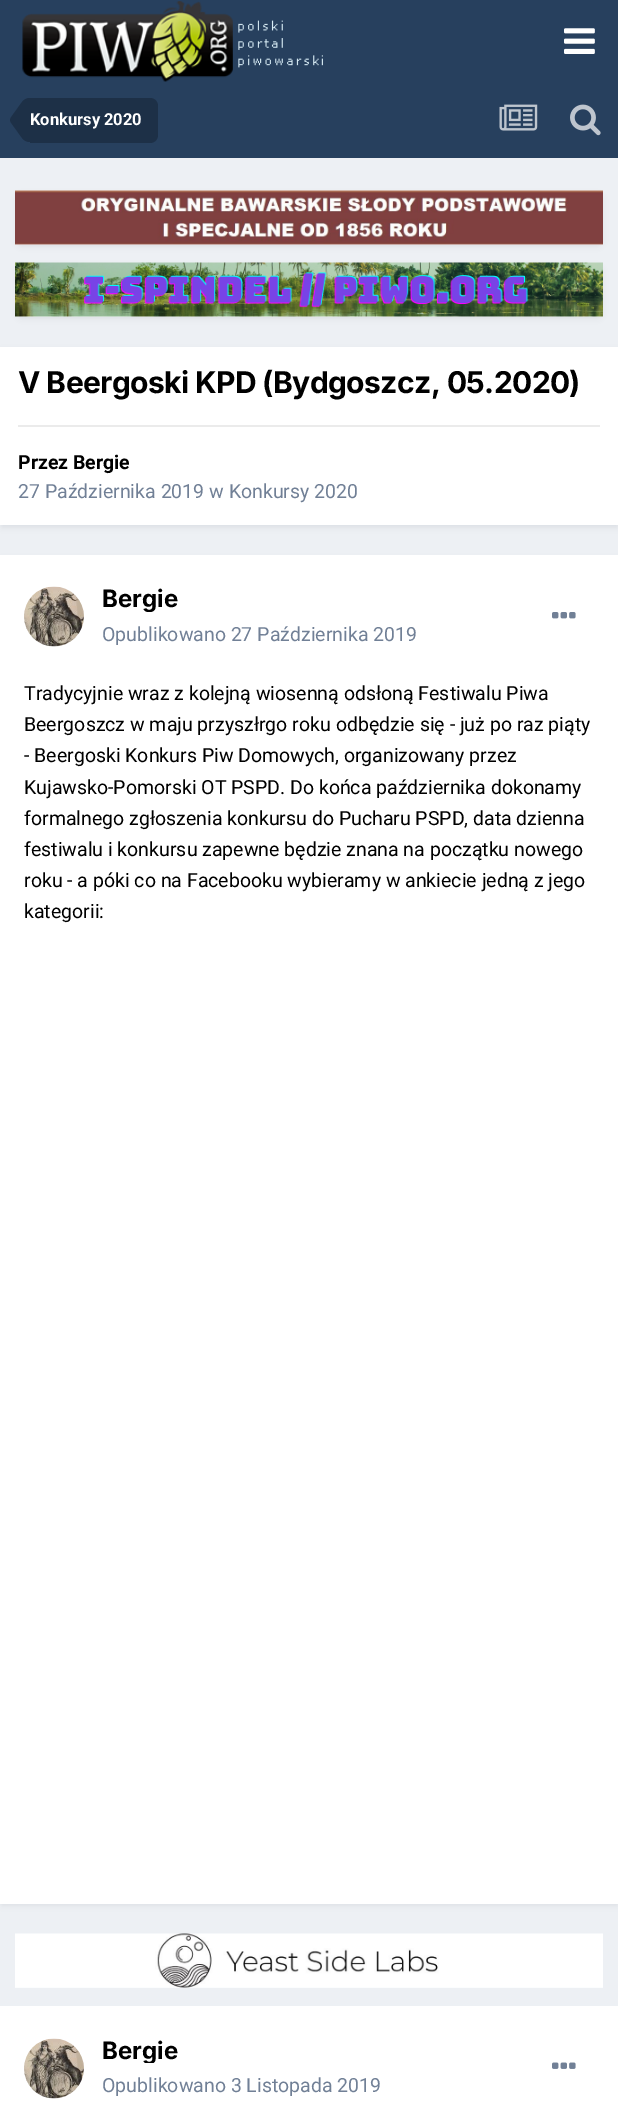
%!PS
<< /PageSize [618 2112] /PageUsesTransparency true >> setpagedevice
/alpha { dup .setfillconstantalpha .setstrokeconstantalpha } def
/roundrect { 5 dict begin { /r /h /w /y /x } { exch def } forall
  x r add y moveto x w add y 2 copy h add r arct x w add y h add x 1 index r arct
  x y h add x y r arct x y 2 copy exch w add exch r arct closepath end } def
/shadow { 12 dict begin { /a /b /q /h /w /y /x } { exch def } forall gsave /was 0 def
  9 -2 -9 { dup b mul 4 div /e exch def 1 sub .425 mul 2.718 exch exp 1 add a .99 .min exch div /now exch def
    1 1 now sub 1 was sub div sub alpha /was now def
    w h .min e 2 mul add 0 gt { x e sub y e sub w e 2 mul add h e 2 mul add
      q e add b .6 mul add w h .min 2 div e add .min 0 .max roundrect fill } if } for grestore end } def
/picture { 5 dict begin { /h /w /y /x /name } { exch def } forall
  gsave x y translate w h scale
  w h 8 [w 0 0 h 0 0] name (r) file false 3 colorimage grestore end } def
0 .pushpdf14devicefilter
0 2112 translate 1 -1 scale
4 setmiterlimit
0.929 0.941 0.957 setrgbcolor
0 0 618 2112 rectfill
0.153 0.251 0.369 setrgbcolor
0 0 618 158 rectfill
(img1.rgb) 22 1 301 81 picture
(img2.rgb) 564 28 31 26 picture
0.114 0.188 0.278 setrgbcolor
newpath 30 98 moveto 150 98 lineto 154.5 98 158 101.5 158 106 curveto 158 135 lineto 158 139.5 154.5 143 150 143 curveto 30 143 lineto closepath fill
newpath 30 120 moveto 30 142 lineto 27 142 24.5 141 22 138 curveto 10.5 122 lineto 10 120 lineto closepath 30 120 moveto 10 120 lineto 10.5 118 lineto 22 102 lineto 24.5 99 27 98 30 98 curveto closepath fill
/Roboto-Bold [16.5 0 0 -16.5 0 0] selectfont
1 setgray
30 125 moveto (Konkursy 2020) show
(img3.rgb) 499 104 39 27 picture
(img4.rgb) 570 104 31 32 picture
0.176 0.216 0.282 setrgbcolor
17 195 585 51 5 3 0.1 shadow
0.969 0.98 0.988 setrgbcolor
15 244 588 1 rectfill
(img5.rgb) 15 190 588 55 picture
0.176 0.216 0.282 setrgbcolor
17 267 585 51 5 3 0.1 shadow
0.969 0.98 0.988 setrgbcolor
15 316 588 1 rectfill
(img6.rgb) 15 262 588 55 picture
0.176 0.216 0.282 setrgbcolor
2 351 615 176 0 3 0.1 shadow
1 setgray
0 347 618 178 rectfill
/Inter-Bold [30 0 0 -30 0 0] selectfont
0 setgray
18 393 moveto -0.6 0 (V Beergoski KPD \(Bydgoszcz, 05.2020\)) ashow
0.922 setgray
18 425 582 2 rectfill
/Roboto-Bold [19.5 0 0 -19.5 0 0] selectfont
0 setgray
18 469 moveto (Przez Bergie) show
/Roboto-Regular [19.5 0 0 -19.5 0 0] selectfont
0.443 0.502 0.588 setrgbcolor
18 498 moveto (27 Października 2019 w Konkursy 2020) show
0.176 0.216 0.282 setrgbcolor
2 560 615 1345 0 3 0.1 shadow
1 setgray
0 555 618 1349 rectfill
(img7.rgb) 24 586 60 61 picture
gsave
102 585 77 27 rectclip
/Inter-Bold [24 0 0 -24 0 0] selectfont
0 setgray
102 607 moveto (Bergie) show
grestore
0.443 0.502 0.588 setrgbcolor
102 641 moveto (Opublikowano 27 Października 2019) show
(img8.rgb) 552 612 24 7 picture
0 setgray
24 700 moveto (Tradycyjnie wraz z kolejną wiosenną odsłoną Festiwalu Piwa) show
24 731 moveto (Beergoszcz w maju przyszłrgo roku odbędzie się - już po raz piąty) show
24 762 moveto (- Beergoski Konkurs Piw Domowych, organizowany przez) show
24 794 moveto (Kujawsko-Pomorski OT PSPD. Do końca października dokonamy) show
24 825 moveto (formalnego zgłoszenia konkursu do Pucharu PSPD, data dzienna) show
24 856 moveto (festiwalu i konkursu zapewne będzie znana na początku nowego) show
24 887 moveto (roku - a póki co na Facebooku wybieramy w ankiecie jedną z jego) show
24 918 moveto (kategorii:) show
0.969 0.98 0.988 setrgbcolor
15 1987 588 1 rectfill
(img9.rgb) 15 1933 588 55 picture
1 setgray
0 2006 618 106 rectfill
(img10.rgb) 24 2038 60 61 picture
gsave
102 2036 77 27 rectclip
/Inter-Bold [24 0 0 -24 0 0] selectfont
0 setgray
102 2059 moveto (Bergie) show
grestore
0.443 0.502 0.588 setrgbcolor
102 2092 moveto (Opublikowano 3 Listopada 2019) show
(img11.rgb) 552 2062 24 7 picture
.poppdf14devicefilter showpage
